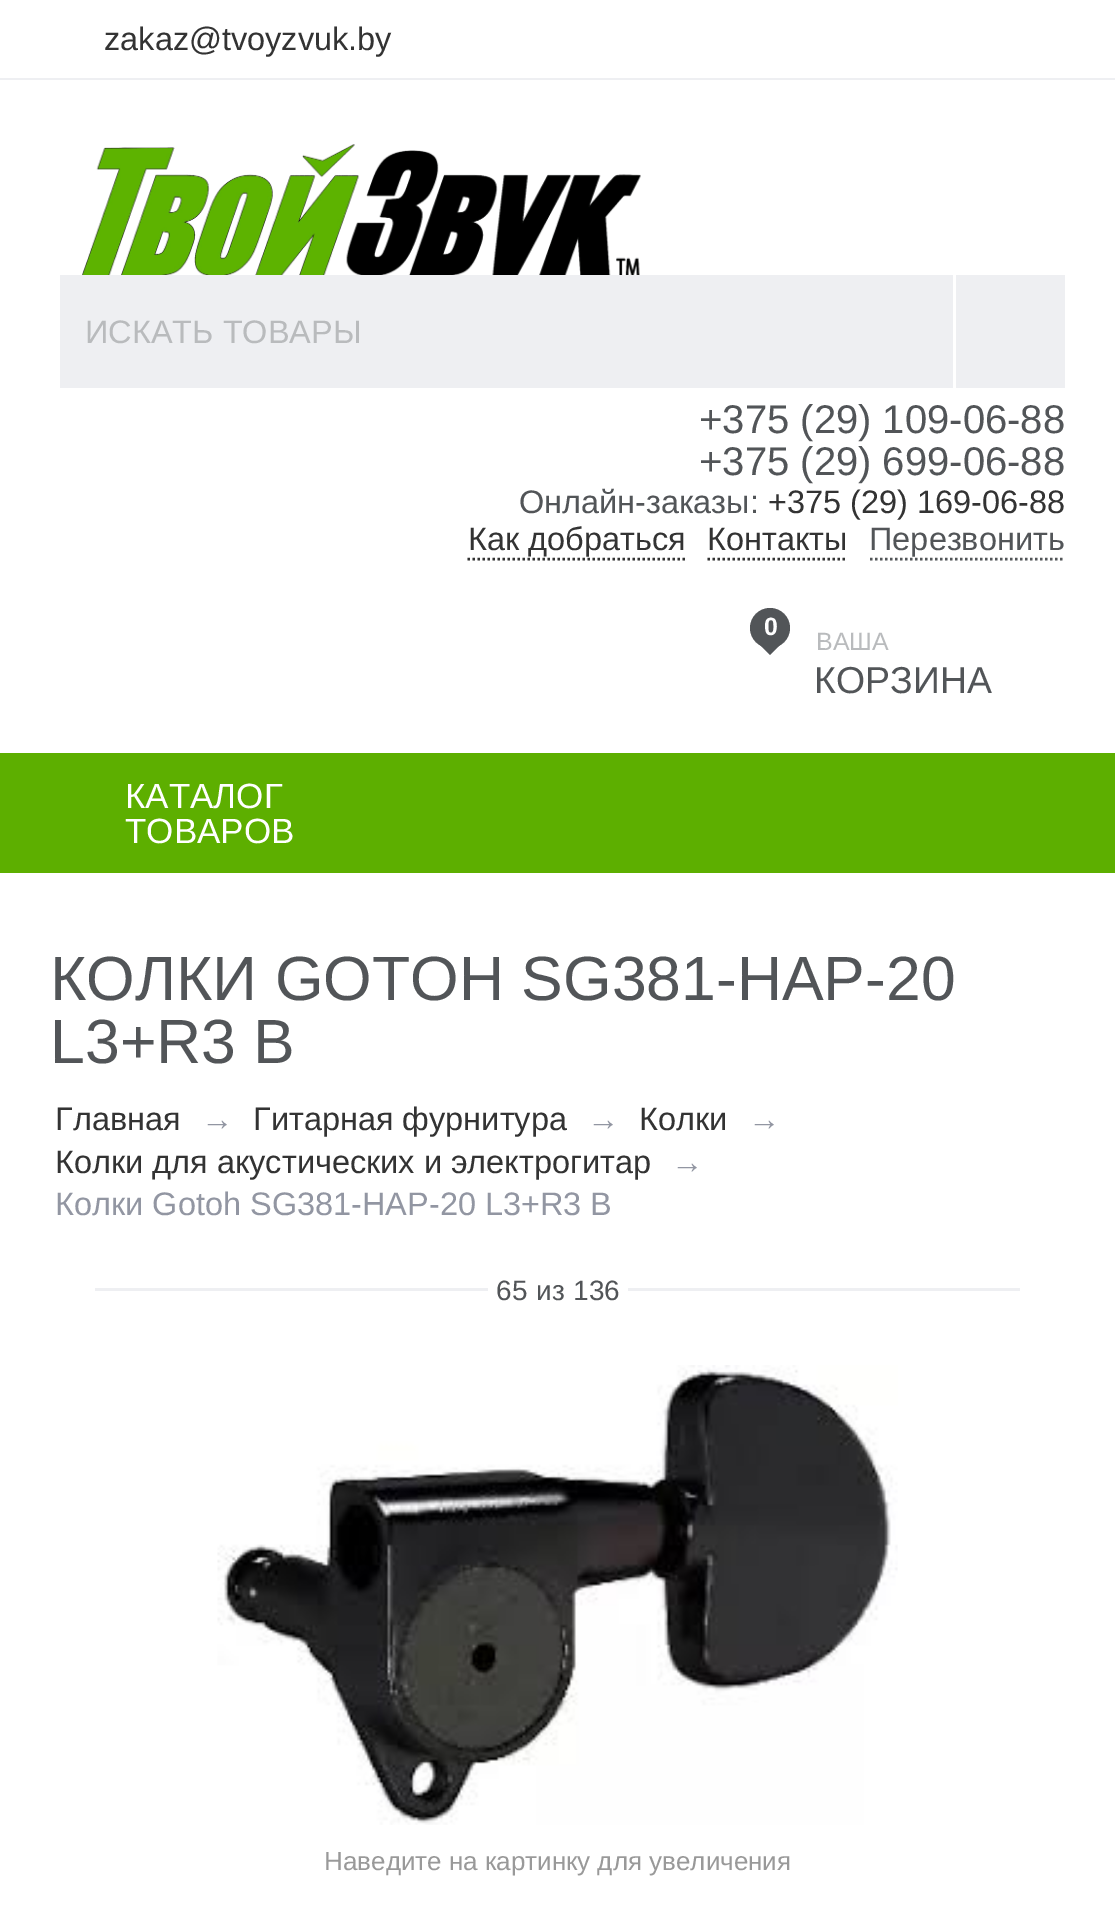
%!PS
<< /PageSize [1115 1926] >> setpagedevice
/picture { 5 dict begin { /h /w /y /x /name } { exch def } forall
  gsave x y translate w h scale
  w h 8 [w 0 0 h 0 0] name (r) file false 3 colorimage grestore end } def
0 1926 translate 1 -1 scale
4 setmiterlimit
1 setgray
0 0 1115 1926 rectfill
0.933 0.937 0.949 setrgbcolor
0 78 1115 2 rectfill
/LiberationSans-Regular [32.5 0 0 -32.5 0 0] selectfont
0.2 setgray
104 50 moveto (zakaz@tvoyzvuk.by) show
(img1.rgb) 82 144 559 131 picture
0.933 0.937 0.949 setrgbcolor
60 275 893 113 rectfill
0.725 0.733 0.741 setrgbcolor
85 343 moveto (ИСКАТЬ ТОВАРЫ) show
0.933 0.937 0.949 setrgbcolor
956 275 109 113 rectfill
/LiberationSans-Regular [40 0 0 -40 0 0] selectfont
0.322 0.333 0.345 setrgbcolor
699 433 moveto (+375 \(29\) 109-06-88) show
699 475 moveto (+375 \(29\) 699-06-88) show
/LiberationSans-Regular [32.5 0 0 -32.5 0 0] selectfont
519 513 moveto (Онлайн-заказы:) show
0.2 setgray
768 513 moveto (+375 \(29\) 169-06-88) show
2.5 setlinewidth
[2.5 2.5] 0 setdash
newpath 467.5 559 moveto 685 559 lineto stroke
468 550 moveto (Как добраться) show
newpath 707.5 559 moveto 847.5 559 lineto stroke
707 550 moveto (Контакты) show
0.322 0.333 0.345 setrgbcolor
newpath 870 559 moveto 1065 559 lineto stroke
869 550 moveto (Перезвонить) show
newpath 770 628 20 0 360 arc closepath fill
/LiberationSans-Bold [25 0 0 -25 0 0] selectfont
1 setgray
764 635 moveto (0) show
0.322 0.333 0.345 setrgbcolor
newpath 757.5 642.5 moveto 782.5 642.5 lineto 770 655 lineto closepath fill
/LiberationSans-Regular [25 0 0 -25 0 0] selectfont
0.725 0.733 0.741 setrgbcolor
816 650 moveto (ВАША) show
/LiberationSans-Regular [37.5 0 0 -37.5 0 0] selectfont
0.322 0.333 0.345 setrgbcolor
814 693 moveto (КОРЗИНА) show
0.365 0.686 0 setrgbcolor
0 753 1115 120 rectfill
/LiberationSans-Regular [35 0 0 -35 0 0] selectfont
1 setgray
125 808 moveto (КАТАЛОГ) show
125 843 moveto (ТОВАРОВ) show
/LiberationSans-Regular [62.5 0 0 -62.5 0 0] selectfont
0.322 0.333 0.345 setrgbcolor
50 1000 moveto (КОЛКИ GOTOH SG381-HAP-20) show
50 1063 moveto (L3+R3 B) show
0.933 0.937 0.949 setrgbcolor
95 1288 925 3 rectfill
/LiberationSans-Regular [32.5 0 0 -32.5 0 0] selectfont
0.2 setgray
55 1130 moveto (Главная) show
0.573 0.588 0.635 setrgbcolor
201 1130 moveto (→) show
0.2 setgray
253 1130 moveto (Гитарная фурнитура) show
0.573 0.588 0.635 setrgbcolor
587 1130 moveto (→) show
0.2 setgray
639 1130 moveto (Колки) show
0.573 0.588 0.635 setrgbcolor
748 1130 moveto (→) show
0.2 setgray
55 1173 moveto (Колки для акустических и электрогитар) show
0.573 0.588 0.635 setrgbcolor
671 1173 moveto (→) show
55 1215 moveto (Колки Gotoh SG381-HAP-20 L3+R3 B) show
1 setgray
488 1288 140 3 rectfill
/LiberationSans-Regular [28 0 0 -28 0 0] selectfont
0.322 0.333 0.345 setrgbcolor
496 1300 moveto (65) show
536 1300 moveto (из) show
573 1300 moveto (136) show
(img2.rgb) 217 1365 681 460 picture
/LiberationSans-Regular [26 0 0 -26 0 0] selectfont
0.6 setgray
324 1870 moveto (Наведите на картинку для увеличения) show
showpage
